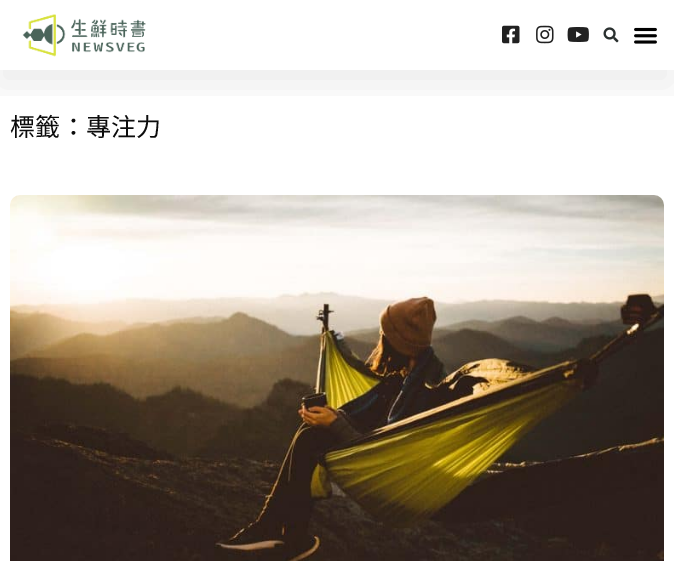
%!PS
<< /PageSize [674 561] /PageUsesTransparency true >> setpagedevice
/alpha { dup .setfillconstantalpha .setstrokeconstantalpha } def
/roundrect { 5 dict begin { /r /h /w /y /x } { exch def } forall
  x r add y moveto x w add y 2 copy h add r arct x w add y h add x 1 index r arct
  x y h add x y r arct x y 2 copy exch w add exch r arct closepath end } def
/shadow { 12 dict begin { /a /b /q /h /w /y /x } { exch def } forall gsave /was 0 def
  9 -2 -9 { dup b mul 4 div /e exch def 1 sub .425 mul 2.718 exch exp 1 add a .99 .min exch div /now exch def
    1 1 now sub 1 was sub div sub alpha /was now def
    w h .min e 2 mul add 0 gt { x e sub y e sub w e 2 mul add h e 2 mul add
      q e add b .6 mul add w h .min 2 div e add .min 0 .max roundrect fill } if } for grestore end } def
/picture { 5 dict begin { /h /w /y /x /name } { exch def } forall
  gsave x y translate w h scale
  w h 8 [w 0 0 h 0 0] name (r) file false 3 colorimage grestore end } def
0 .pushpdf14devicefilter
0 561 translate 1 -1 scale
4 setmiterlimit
1 setgray
0 0 674 561 rectfill
gsave
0 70 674 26 rectclip
0 setgray
-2 15 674 70 0 20 0.07 shadow
grestore
(img1.rgb) 22 14 124 43 picture
(img2.rgb) 502 25 18 19 picture
(img3.rgb) 536 25 18 19 picture
(img4.rgb) 567 27 22 15 picture
(img5.rgb) 603 27 16 16 picture
(img6.rgb) 634 27 23 17 picture
/NotoSansCJKTC-Regular [25 0 0 -25 0 0] selectfont
0.047 setgray
10 136 moveto 0.25 0 (標籤：專注力) ashow
(img7.rgb) 10 195 654 366 picture
.poppdf14devicefilter showpage
